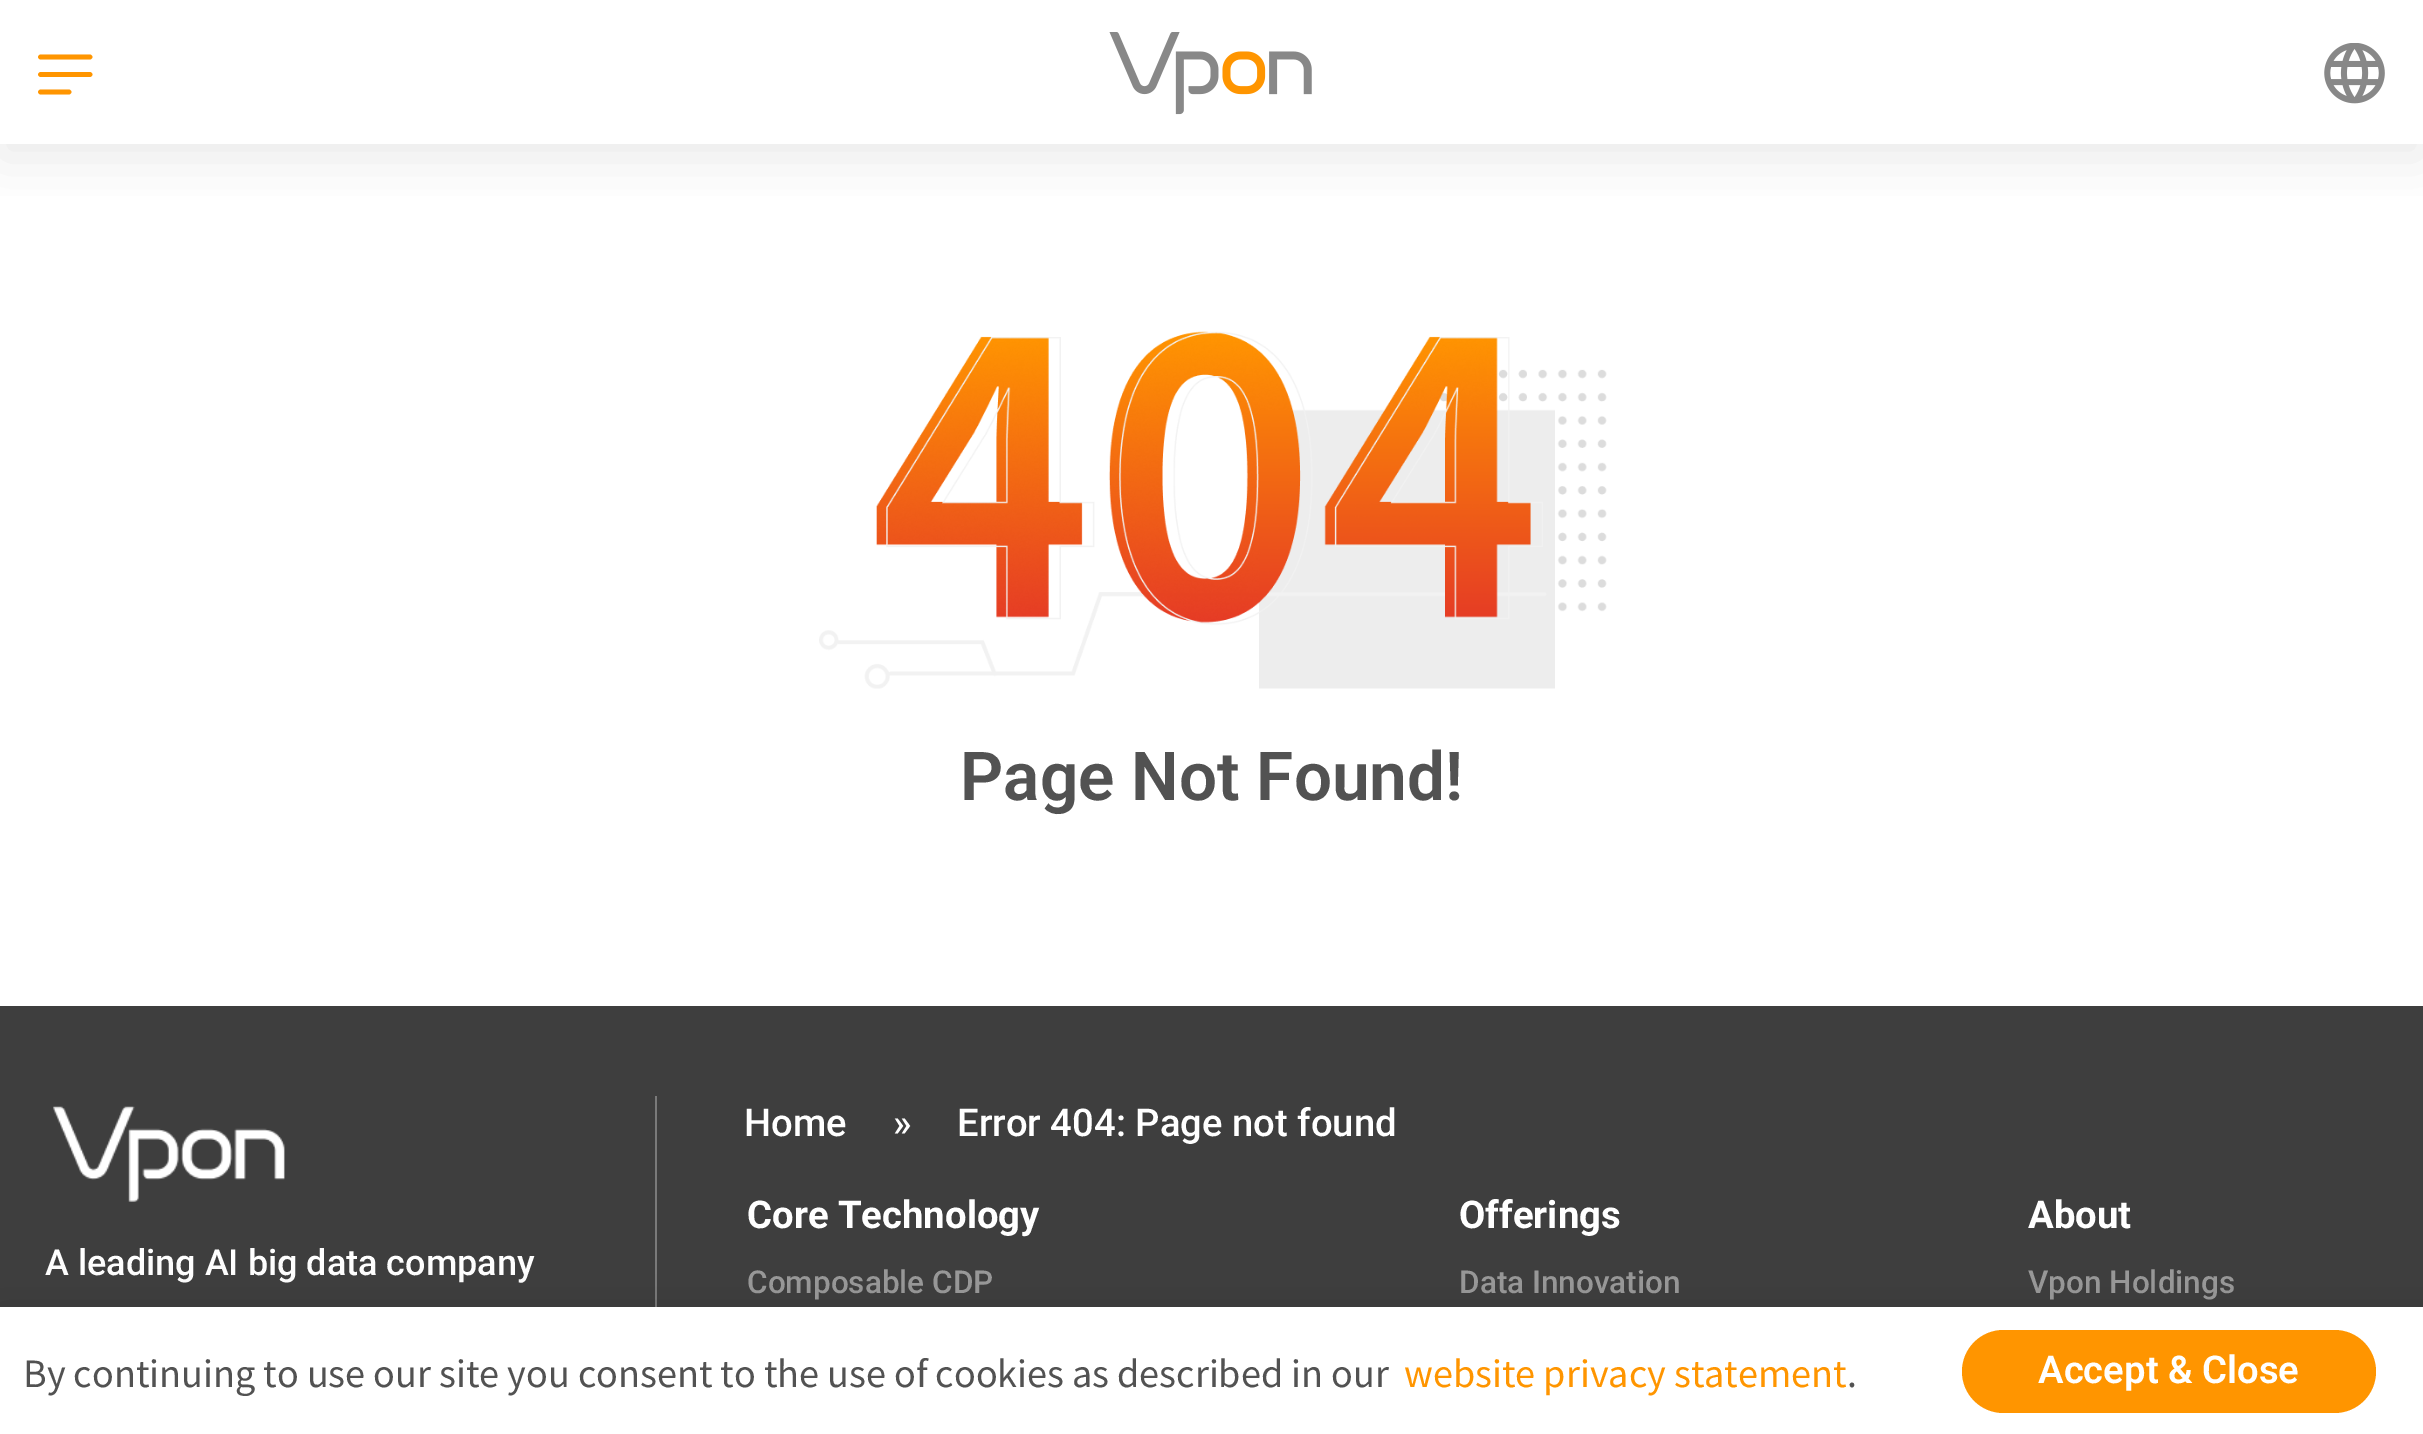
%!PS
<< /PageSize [2423 1434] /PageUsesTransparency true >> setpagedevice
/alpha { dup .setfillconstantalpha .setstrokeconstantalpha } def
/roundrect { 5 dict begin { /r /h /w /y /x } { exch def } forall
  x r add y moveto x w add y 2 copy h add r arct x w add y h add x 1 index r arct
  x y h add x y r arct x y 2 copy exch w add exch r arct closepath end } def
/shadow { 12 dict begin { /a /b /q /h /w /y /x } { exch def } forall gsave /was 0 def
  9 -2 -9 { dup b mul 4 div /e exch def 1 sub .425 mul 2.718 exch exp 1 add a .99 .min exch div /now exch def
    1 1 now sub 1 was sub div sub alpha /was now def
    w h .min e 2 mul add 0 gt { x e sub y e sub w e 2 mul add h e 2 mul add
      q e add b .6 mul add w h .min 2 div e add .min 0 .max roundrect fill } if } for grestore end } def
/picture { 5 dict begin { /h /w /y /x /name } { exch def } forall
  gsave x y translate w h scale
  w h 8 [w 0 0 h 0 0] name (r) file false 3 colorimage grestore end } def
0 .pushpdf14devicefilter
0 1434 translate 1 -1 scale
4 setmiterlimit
1 setgray
0 0 2423 1434 rectfill
gsave
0 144 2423 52 rectclip
0.737 setgray
0 14 2423 144 0 25 0.3 shadow
grestore
1 0.584 0 setrgbcolor
4.7 setlinewidth
1 setlinecap
newpath 40.5 57 moveto 90 57 lineto 40.5 74.5 moveto 90 74.5 lineto 40.5 92 moveto 69 92 lineto stroke
(img1.rgb) 1109 32 203 83 picture
(img2.rgb) 2324 43 61 61 picture
(img3.rgb) 819 331 788 358 picture
/Roboto-SemiBold [67.5 0 0 -67.5 0 0] selectfont
0.322 setgray
960 800 moveto (Page Not Found!) show
0.243 setgray
0 1006 2423 301 rectfill
(img4.rgb) 53 1106 232 96 picture
/Roboto-Medium [36 0 0 -36 0 0] selectfont
1 setgray
45 1275 moveto (A leading AI big data company) show
0.478 setgray
655 1096 2 211 rectfill
/Roboto-Medium [38.25 0 0 -38.25 0 0] selectfont
1 setgray
744 1136 moveto (Home) show
893 1136 moveto (») show
957 1136 moveto (Error 404: Page not found) show
/Roboto-Bold [38.25 0 0 -38.25 0 0] selectfont
747 1228 moveto (Core Technology) show
/Roboto-Medium [31.5 0 0 -31.5 0 0] selectfont
0.6 setgray
747 1293 moveto (Composable CDP) show
/Roboto-Bold [38.25 0 0 -38.25 0 0] selectfont
1 setgray
1459 1228 moveto (Offerings) show
/Roboto-Medium [31.5 0 0 -31.5 0 0] selectfont
0.6 setgray
1459 1293 moveto (Data Innovation) show
/Roboto-Bold [38.25 0 0 -38.25 0 0] selectfont
1 setgray
2028 1228 moveto (About) show
/Roboto-Medium [31.5 0 0 -31.5 0 0] selectfont
0.6 setgray
2028 1293 moveto (Vpon Holdings) show
0 setgray
-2 1319 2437 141 0 26 0.2 shadow
1 setgray
0 1307 2423 127 rectfill
/NotoSansTC-Regular [36 0 0 -36 0 0] selectfont
0.322 setgray
23 1387 moveto (By continuing to use our site you consent to the use of cookies as described in our) show
1 0.584 0 setrgbcolor
1404 1387 moveto (website privacy statement) show
0.322 setgray
1847 1387 moveto (.) show
1 0.584 0 setrgbcolor
1962 1330 414 83 41.5 roundrect fill
/Roboto-SemiBold [38.25 0 0 -38.25 0 0] selectfont
1 setgray
2038 1383 moveto (Accept & Close) show
.poppdf14devicefilter showpage
